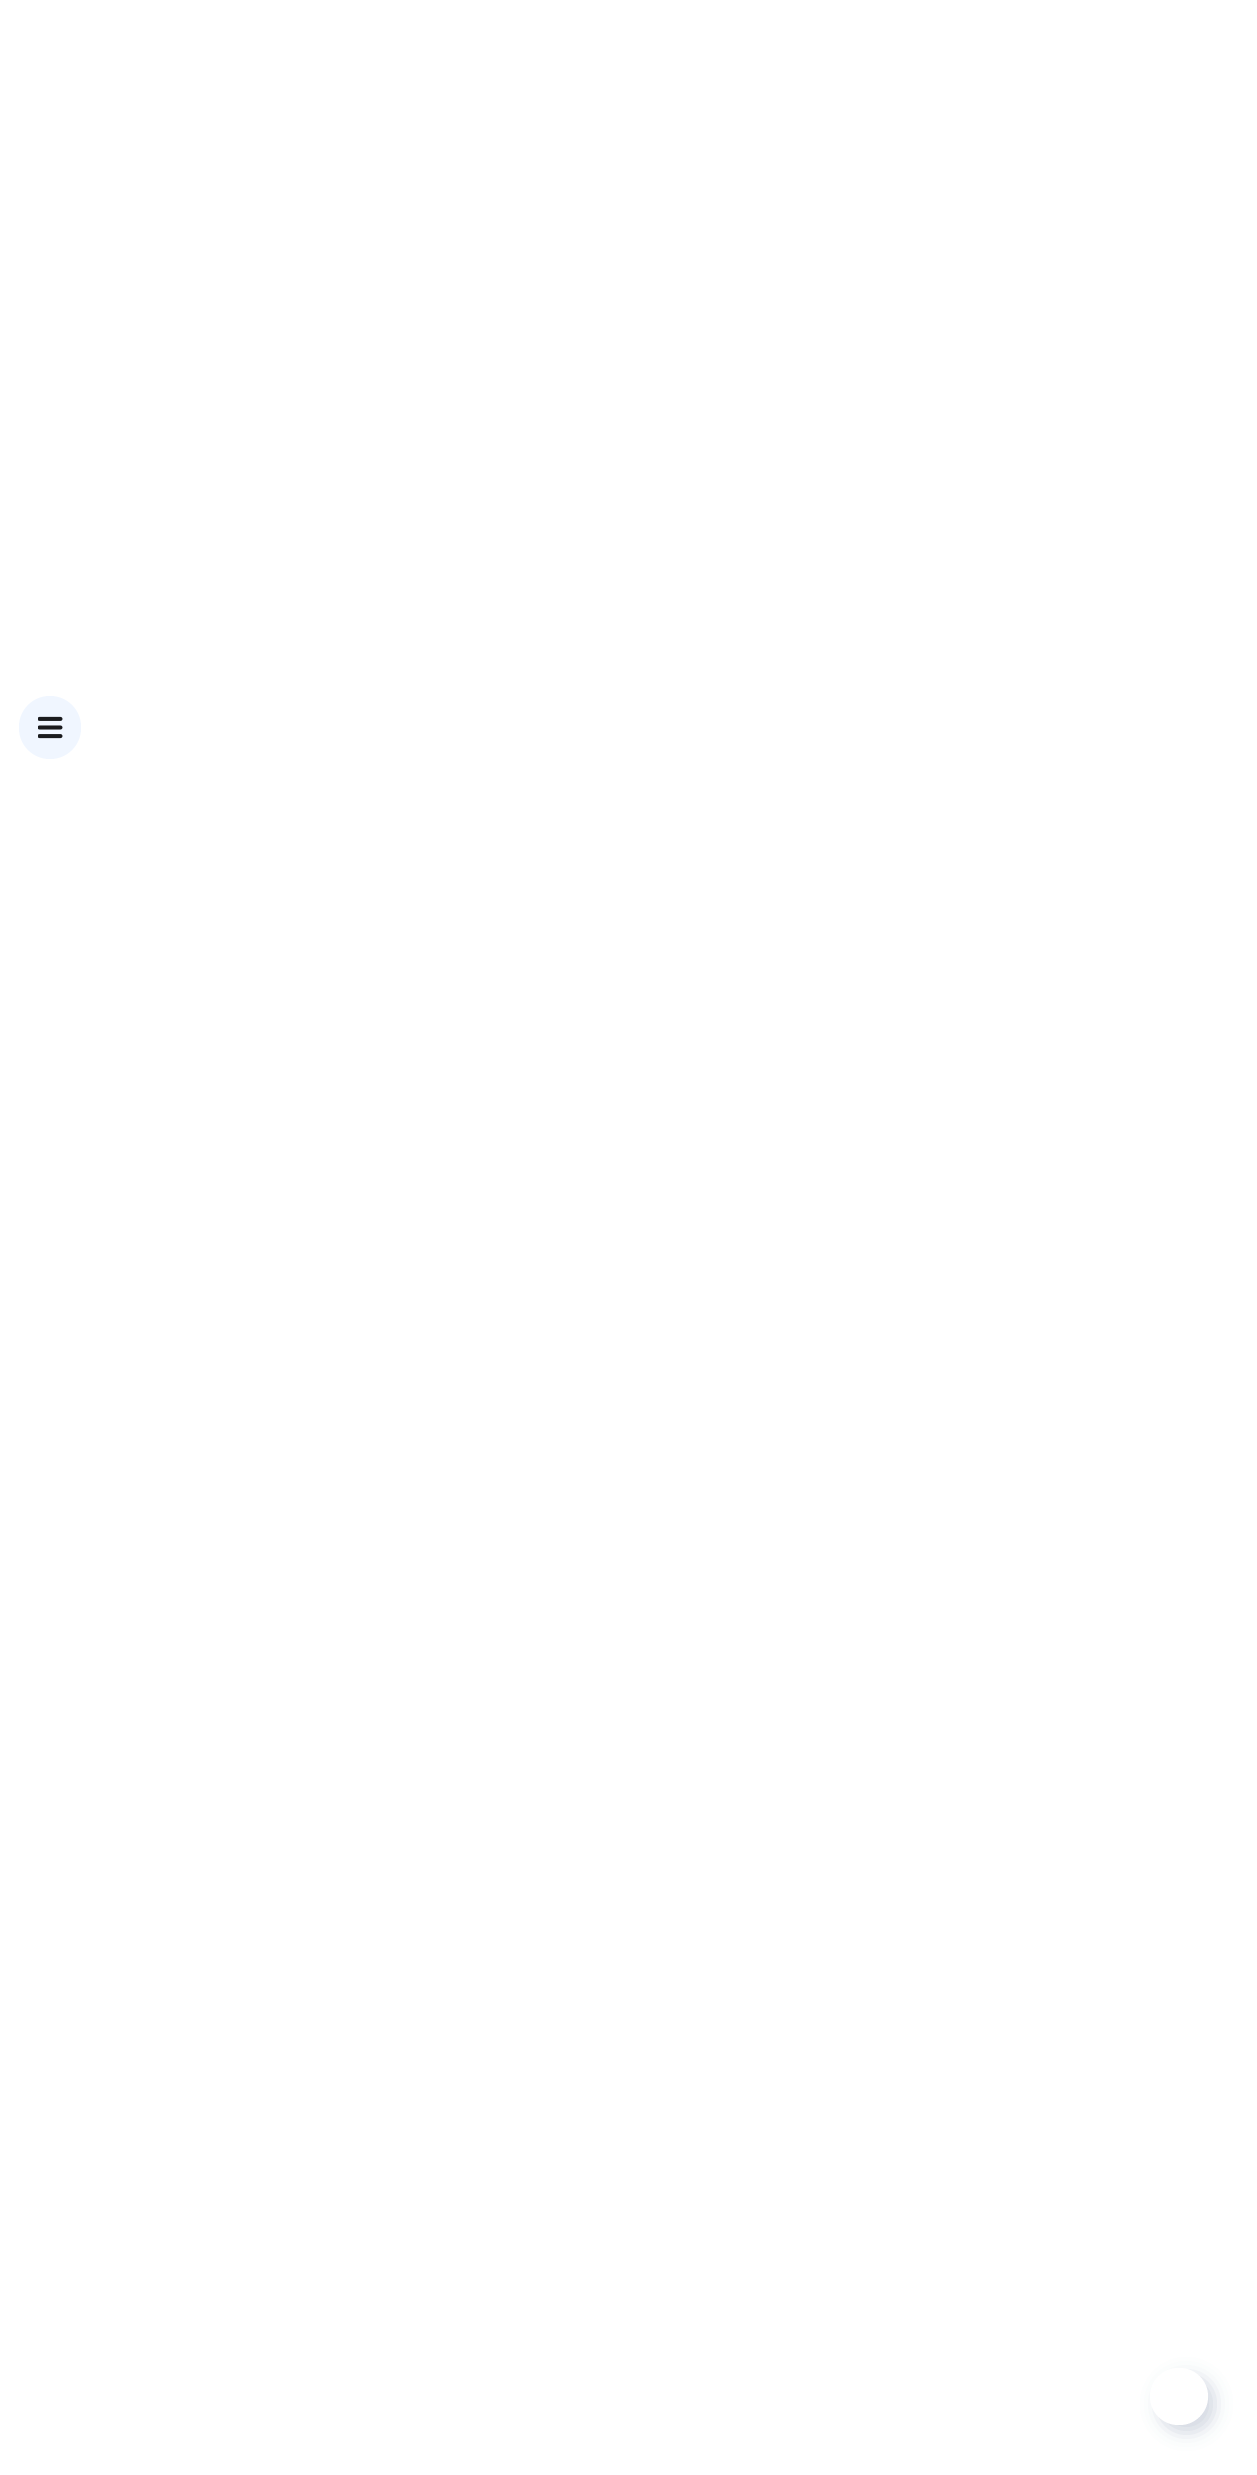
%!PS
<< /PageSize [1257 2475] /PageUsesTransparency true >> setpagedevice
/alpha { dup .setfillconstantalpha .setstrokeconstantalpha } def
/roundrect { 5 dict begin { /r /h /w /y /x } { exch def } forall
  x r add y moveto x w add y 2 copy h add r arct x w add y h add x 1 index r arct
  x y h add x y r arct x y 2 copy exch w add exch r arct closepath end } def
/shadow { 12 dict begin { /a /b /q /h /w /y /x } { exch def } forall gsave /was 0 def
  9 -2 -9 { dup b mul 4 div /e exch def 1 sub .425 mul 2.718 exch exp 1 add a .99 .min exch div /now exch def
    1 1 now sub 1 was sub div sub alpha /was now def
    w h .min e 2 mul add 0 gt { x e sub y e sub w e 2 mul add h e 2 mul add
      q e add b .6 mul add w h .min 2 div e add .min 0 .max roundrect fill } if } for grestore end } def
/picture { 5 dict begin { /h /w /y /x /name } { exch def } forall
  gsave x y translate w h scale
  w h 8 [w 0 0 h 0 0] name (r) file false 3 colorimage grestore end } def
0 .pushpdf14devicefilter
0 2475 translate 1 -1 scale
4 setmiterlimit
1 setgray
0 0 1257 2475 rectfill
0.941 0.965 1 setrgbcolor
19 696 62 63 31 roundrect fill
(img1.rgb) 38 716 25 23 picture
0.165 0.263 0.443 setrgbcolor
1158 2375 57 58 28.5 8 0.2 shadow
1 setgray
1150 2368 58 57 28.5 roundrect fill
.poppdf14devicefilter showpage
